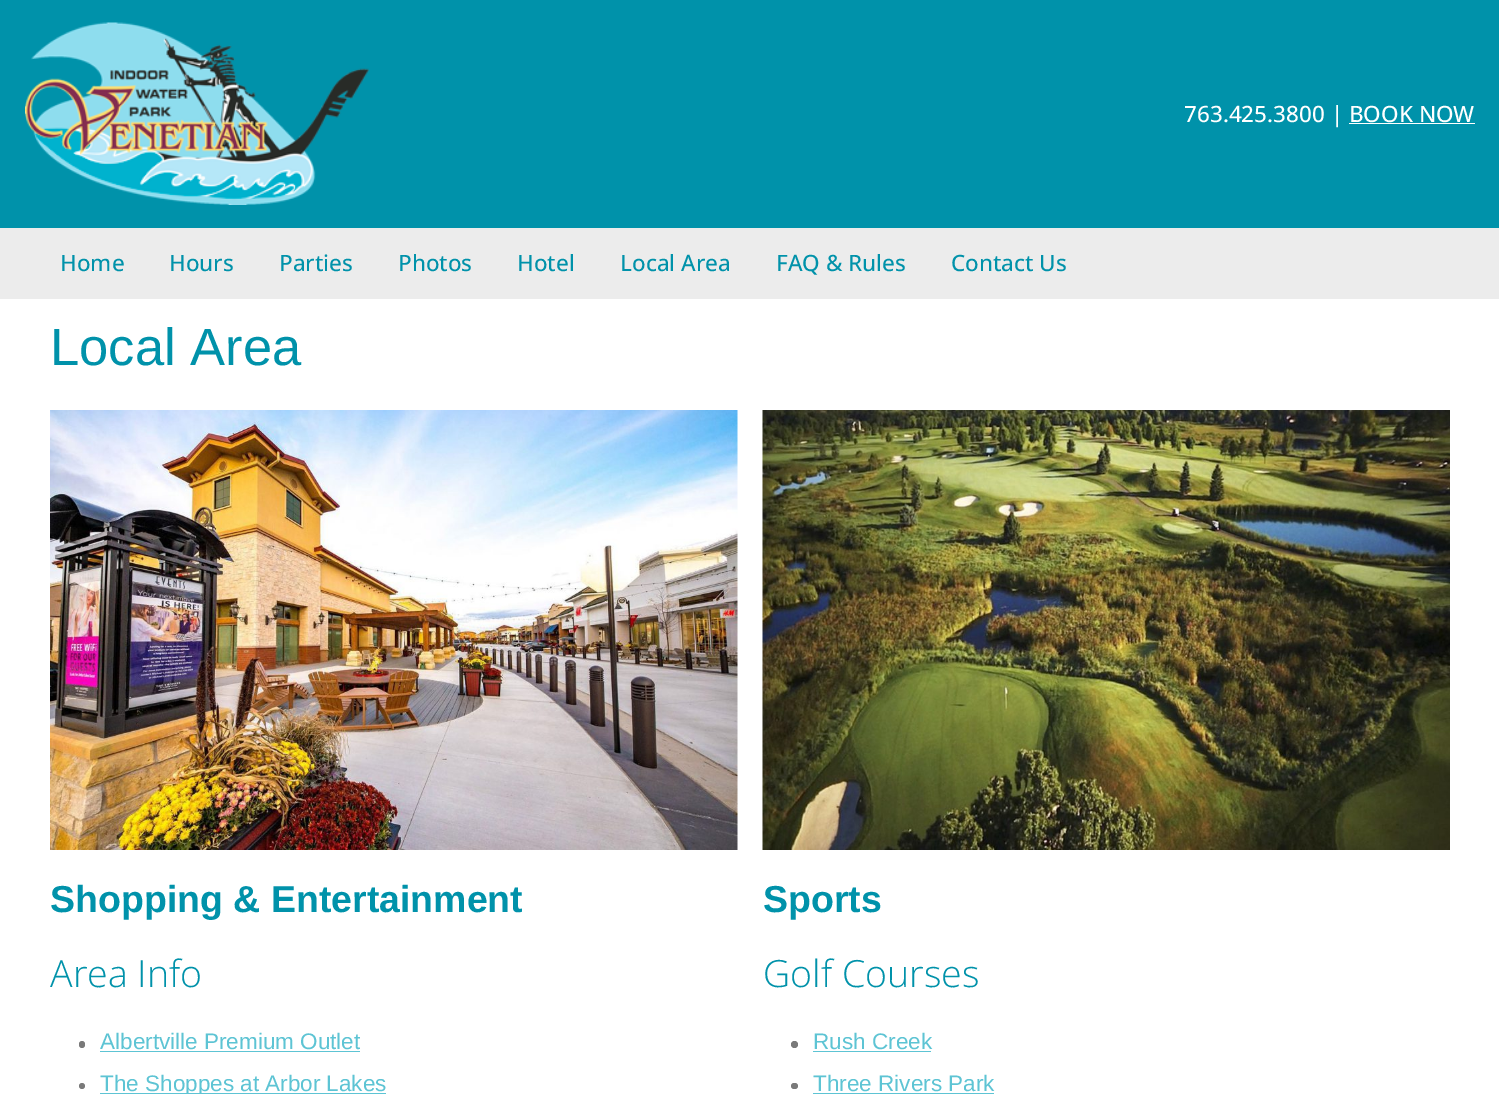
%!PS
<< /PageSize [1499 1094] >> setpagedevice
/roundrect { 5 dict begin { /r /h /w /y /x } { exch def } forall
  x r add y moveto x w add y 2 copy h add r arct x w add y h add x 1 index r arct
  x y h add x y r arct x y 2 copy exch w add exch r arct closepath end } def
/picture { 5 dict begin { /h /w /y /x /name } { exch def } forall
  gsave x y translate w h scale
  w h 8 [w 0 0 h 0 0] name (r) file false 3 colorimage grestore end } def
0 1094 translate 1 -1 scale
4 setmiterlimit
1 setgray
0 0 1499 1094 rectfill
0 0.573 0.667 setrgbcolor
0 0 1499 228 rectfill
(img1.rgb) 25 22 344 183 picture
/OpenSans-Medium [22.5 0 0 -22.5 0 0] selectfont
1 setgray
1184 122 moveto (763.425.3800 | BOOK NOW) show
1349 123 126 1 rectfill
0.925 setgray
0 228 1499 71 rectfill
0 0.573 0.667 setrgbcolor
60 271 moveto (Home) show
169 271 moveto (Hours) show
279 271 moveto (Parties) show
398 271 moveto (Photos) show
517 271 moveto (Hotel) show
620 271 moveto (Local Area) show
776 271 moveto (FAQ & Rules) show
951 271 moveto (Contact Us) show
/LiberationSans-Regular [52.5 0 0 -52.5 0 0] selectfont
50 365 moveto (Local Area) show
(img2.rgb) 50 410 688 440 picture
/LiberationSans-Bold [37.5 0 0 -37.5 0 0] selectfont
50 912 moveto (Shopping & Entertainment) show
/OpenSans-Light [37.5 0 0 -37.5 0 0] selectfont
50 987 moveto (Area Info) show
0.478 setgray
79 1041 6 7 3 roundrect fill
/LiberationSans-Regular [22.5 0 0 -22.5 0 0] selectfont
0.365 0.769 0.831 setrgbcolor
100 1049 moveto (Albertville Premium Outlet) show
100 1051 260 1 rectfill
0.478 setgray
newpath 82 1086 3 0 360 arc closepath fill
0.365 0.769 0.831 setrgbcolor
100 1093 286 1 rectfill
100 1091 moveto (The Shoppes at Arbor Lakes) show
(img3.rgb) 762 410 688 440 picture
/LiberationSans-Bold [37.5 0 0 -37.5 0 0] selectfont
0 0.573 0.667 setrgbcolor
763 912 moveto (Sports) show
/OpenSans-Light [37.5 0 0 -37.5 0 0] selectfont
763 987 moveto (Golf Courses) show
0.478 setgray
newpath 794.5 1044.5 3.5 0 360 arc closepath fill
/LiberationSans-Regular [22.5 0 0 -22.5 0 0] selectfont
0.365 0.769 0.831 setrgbcolor
813 1049 moveto (Rush Creek) show
813 1051 118 1 rectfill
0.478 setgray
791 1083 7 6 3 roundrect fill
0.365 0.769 0.831 setrgbcolor
813 1091 moveto (Three Rivers Park) show
813 1093 181 1 rectfill
showpage
